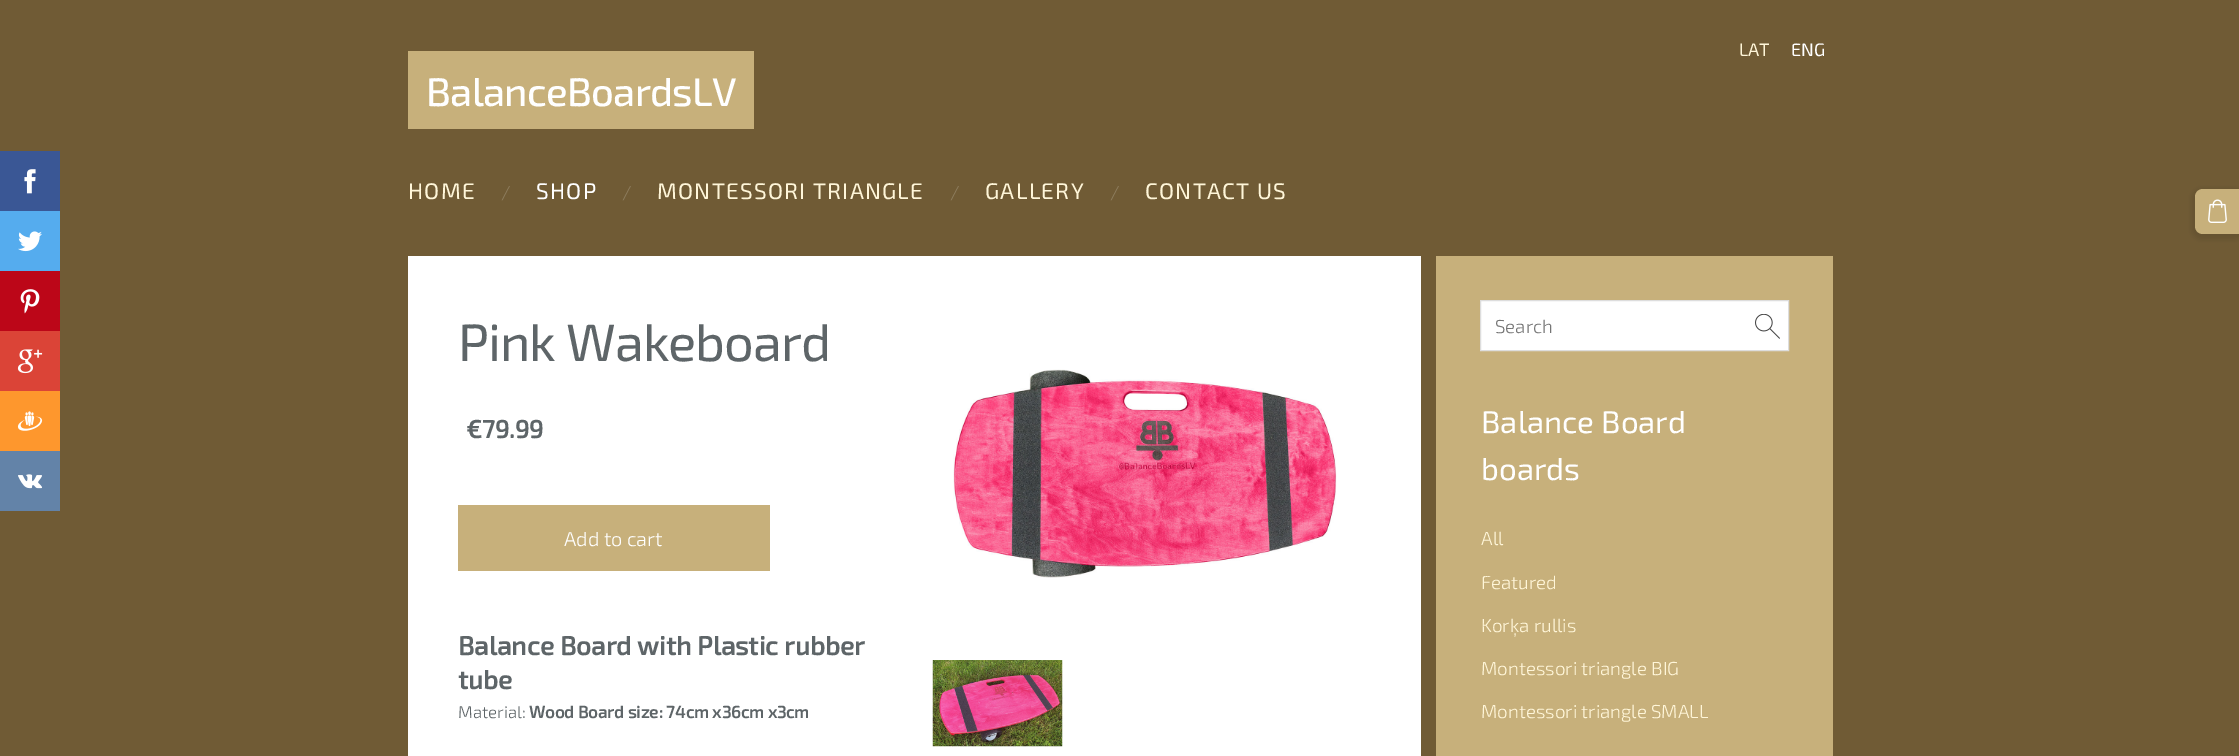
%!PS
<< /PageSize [2239 756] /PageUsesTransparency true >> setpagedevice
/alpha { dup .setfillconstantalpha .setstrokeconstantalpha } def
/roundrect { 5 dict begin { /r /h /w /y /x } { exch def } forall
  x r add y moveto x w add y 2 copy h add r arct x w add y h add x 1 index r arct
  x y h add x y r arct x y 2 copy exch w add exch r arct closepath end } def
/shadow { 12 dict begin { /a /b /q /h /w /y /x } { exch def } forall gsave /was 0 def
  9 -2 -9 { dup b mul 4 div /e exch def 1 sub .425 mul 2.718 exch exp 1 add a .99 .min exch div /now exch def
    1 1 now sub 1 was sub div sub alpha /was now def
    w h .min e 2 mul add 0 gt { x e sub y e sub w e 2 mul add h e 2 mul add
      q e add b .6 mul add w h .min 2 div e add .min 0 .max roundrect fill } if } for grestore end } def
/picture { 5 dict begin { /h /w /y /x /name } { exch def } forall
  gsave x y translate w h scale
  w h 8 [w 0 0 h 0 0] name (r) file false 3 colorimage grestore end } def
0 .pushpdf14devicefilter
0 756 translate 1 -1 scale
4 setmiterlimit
0.439 0.357 0.208 setrgbcolor
0 0 2239 756 rectfill
/Exo2-Regular [18 0 0 -18 0 0] selectfont
1 0.965 0.851 setrgbcolor
1739 56 moveto (LAT) show
1 setgray
1791 56 moveto (ENG) show
0.78 0.69 0.482 setrgbcolor
408 51 346 78 rectfill
/Exo2-Medium [40 0 0 -40 0 0] selectfont
1 setgray
426 106 moveto -0.75 0 (BalanceBoardsLV) ashow
/Exo2-Regular [22.6 0 0 -22.6 0 0] selectfont
1 0.965 0.851 setrgbcolor
408 199 moveto 1.25 0 (HOME) ashow
/Exo2-Light [18.75 0 0 -18.75 0 0] selectfont
0.553 0.486 0.365 setrgbcolor
501 199 moveto (/) show
/Exo2-Regular [22.6 0 0 -22.6 0 0] selectfont
1 setgray
536 199 moveto 1.25 0 (SHOP) ashow
/Exo2-Light [18.75 0 0 -18.75 0 0] selectfont
0.553 0.486 0.365 setrgbcolor
622 199 moveto (/) show
/Exo2-Regular [22.6 0 0 -22.6 0 0] selectfont
1 0.965 0.851 setrgbcolor
657 199 moveto 1.25 0 (MONTESSORI TRIANGLE) ashow
/Exo2-Light [18.75 0 0 -18.75 0 0] selectfont
0.553 0.486 0.365 setrgbcolor
950 199 moveto (/) show
/Exo2-Regular [22.6 0 0 -22.6 0 0] selectfont
1 0.965 0.851 setrgbcolor
985 199 moveto 1.25 0 (GALLERY) ashow
/Exo2-Light [18.75 0 0 -18.75 0 0] selectfont
0.553 0.486 0.365 setrgbcolor
1110 199 moveto (/) show
/Exo2-Regular [22.6 0 0 -22.6 0 0] selectfont
1 0.965 0.851 setrgbcolor
1145 199 moveto 1.25 0 (CONTACT US) ashow
0.227 0.341 0.584 setrgbcolor
0 151 60 60 rectfill
(img1.rgb) 24 169 12 25 picture
0.333 0.675 0.933 setrgbcolor
0 211 60 60 rectfill
(img2.rgb) 18 231 24 21 picture
0.737 0.024 0.094 setrgbcolor
0 271 60 60 rectfill
(img3.rgb) 20 289 20 25 picture
0.859 0.267 0.216 setrgbcolor
0 331 60 60 rectfill
(img4.rgb) 17 349 26 25 picture
0.996 0.592 0.176 setrgbcolor
0 391 60 60 rectfill
(img5.rgb) 17 411 26 20 picture
0.388 0.514 0.659 setrgbcolor
0 451 60 60 rectfill
(img6.rgb) 18 474 24 15 picture
1 setgray
408 256 1013 500 rectfill
0 setgray
2191 188 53 52 11 3 0.1 shadow
0.78 0.69 0.482 setrgbcolor
newpath 2203 189 moveto 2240 189 lineto 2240 234 lineto 2203 234 lineto 2198.5 234 2195 230.5 2195 226 curveto 2195 197 lineto 2195 192.5 2198.5 189 2203 189 curveto closepath fill
(img7.rgb) 2208 199 19 24 picture
/Exo2-Regular [52.5 0 0 -52.5 0 0] selectfont
0.369 0.396 0.408 setrgbcolor
458 361 moveto -1 0 (Pink Wakeboard) ashow
/Exo2-Bold [25 0 0 -25 0 0] selectfont
466 438 moveto (€79.99) show
0.78 0.69 0.482 setrgbcolor
458 505 312 66 rectfill
/Exo2-Light [20 0 0 -20 0 0] selectfont
1 setgray
564 546 moveto (Add to cart) show
/Exo2-Bold [26.25 0 0 -26.25 0 0] selectfont
0.369 0.396 0.408 setrgbcolor
458 655 moveto (Balance Board with Plastic rubber) show
458 689 moveto (tube) show
/Exo2-Light [16.9 0 0 -16.9 0 0] selectfont
458 718 moveto (Material:) show
/Exo2-Bold [16.9 0 0 -16.9 0 0] selectfont
529 718 moveto (Wood Board size: 74cm x36cm x3cm) show
(img8.rgb) 953 369 384 209 picture
(img9.rgb) 932 660 131 87 picture
0.78 0.69 0.482 setrgbcolor
1436 256 397 500 rectfill
1 setgray
newpath 1480.5 300.5 moveto 1788.5 300.5 lineto 1788.5 350.5 lineto 1480.5 350.5 lineto closepath gsave fill grestore
0.867 setgray
stroke
/Exo2-Light [18.75 0 0 -18.75 0 0] selectfont
0.459 setgray
1495 333 moveto (Search) show
(img10.rgb) 1755 314 25 25 picture
/Exo2-Regular [31.25 0 0 -31.25 0 0] selectfont
1 setgray
1481 433 moveto (Balance Board) show
1481 480 moveto (boards) show
/Exo2-Light [18.75 0 0 -18.75 0 0] selectfont
1 0.965 0.851 setrgbcolor
1481 545 moveto (All) show
1481 589 moveto (Featured) show
1481 632 moveto (Korķa rullis) show
1481 675 moveto (Montessori triangle BIG) show
1481 718 moveto (Montessori triangle SMALL) show
.poppdf14devicefilter showpage
